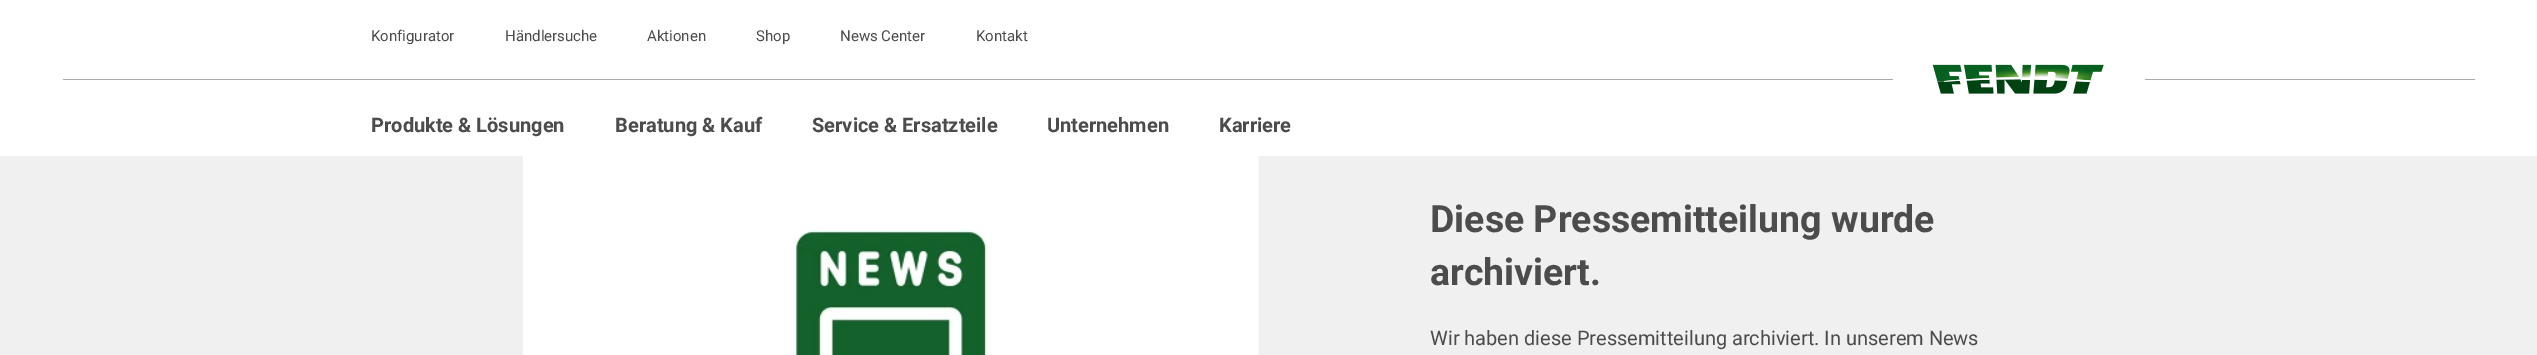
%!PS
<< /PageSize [2537 355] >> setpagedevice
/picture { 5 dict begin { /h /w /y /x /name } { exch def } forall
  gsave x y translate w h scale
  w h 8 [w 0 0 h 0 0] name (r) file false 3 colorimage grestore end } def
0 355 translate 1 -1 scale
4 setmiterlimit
0.941 setgray
0 0 2537 355 rectfill
1 setgray
0 0 2537 156 rectfill
/Roboto-Regular [15 0 0 -15 0 0] selectfont
0.298 setgray
371 41 moveto (Konfigurator) show
505 41 moveto (Händlersuche) show
647 41 moveto (Aktionen) show
756 41 moveto (Shop) show
840 41 moveto (News Center) show
976 41 moveto (Kontakt) show
0.667 setgray
63 79 1830 1 rectfill
(img1.rgb) 1932 64 172 30 picture
2145 79 330 1 rectfill
/Roboto-Bold [20 0 0 -20 0 0] selectfont
0.298 setgray
371 132 moveto (Produkte & Lösungen) show
615 132 moveto (Beratung & Kauf) show
812 132 moveto (Service & Ersatzteile) show
1047 132 moveto (Unternehmen) show
1219 132 moveto (Karriere) show
(img2.rgb) 523 156 736 199 picture
/Roboto-Bold [37.5 0 0 -37.5 0 0] selectfont
1430 232 moveto (Diese Pressemitteilung wurde) show
1430 285 moveto (archiviert.) show
/Roboto-Regular [20 0 0 -20 0 0] selectfont
1430 345 moveto (Wir haben diese Pressemitteilung archiviert. In unserem News) show
showpage
